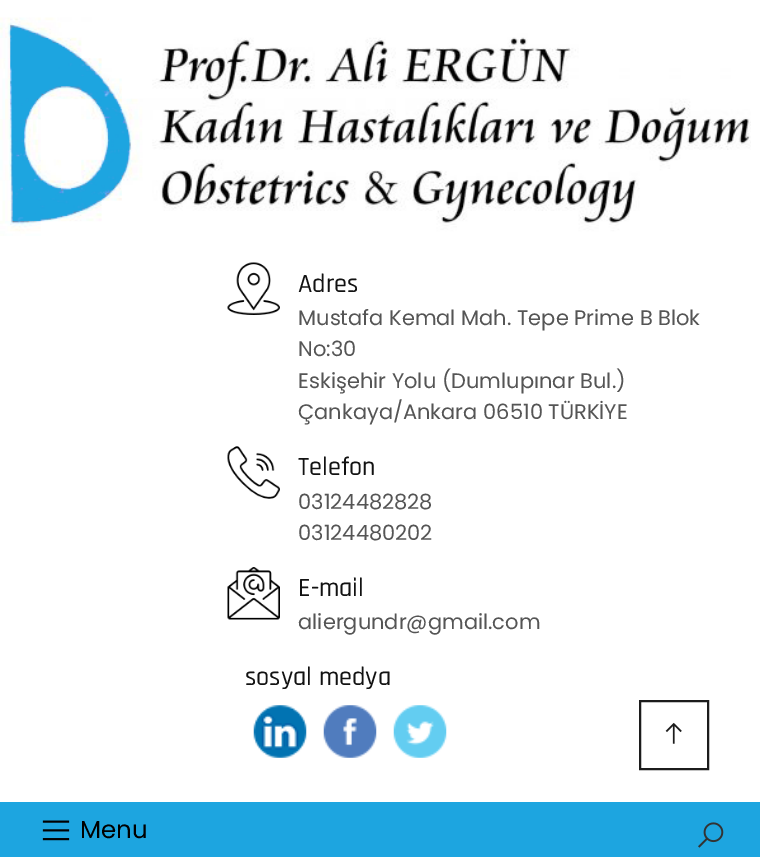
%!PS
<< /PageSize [760 857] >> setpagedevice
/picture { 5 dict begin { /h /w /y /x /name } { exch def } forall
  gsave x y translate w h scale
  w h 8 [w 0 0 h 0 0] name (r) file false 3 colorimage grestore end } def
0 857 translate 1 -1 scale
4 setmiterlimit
1 setgray
0 0 760 857 rectfill
(img1.rgb) 0 17 751 219 picture
(img2.rgb) 227 262 53 53 picture
/Rajdhani-Medium [26.25 0 0 -26.25 0 0] selectfont
0.071 setgray
298 292 moveto (Adres) show
/Poppins-Regular [21 0 0 -21 0 0] selectfont
0.333 setgray
298 325 moveto (Mustafa Kemal Mah. Tepe Prime B Blok) show
298 356 moveto (No:30) show
298 388 moveto (Eskişehir Yolu \(Dumlupınar Bul.\)) show
298 419 moveto (Çankaya/Ankara 06510 TÜRKİYE) show
(img3.rgb) 227 446 53 53 picture
/Rajdhani-Medium [26.25 0 0 -26.25 0 0] selectfont
0.071 setgray
298 475 moveto (Telefon) show
/Poppins-Regular [21 0 0 -21 0 0] selectfont
0.333 setgray
298 509 moveto (03124482828) show
298 540 moveto (03124480202) show
(img4.rgb) 227 567 53 53 picture
/Rajdhani-Medium [26.25 0 0 -26.25 0 0] selectfont
0.071 setgray
298 596 moveto (E-mail) show
/Poppins-Regular [21 0 0 -21 0 0] selectfont
0.333 setgray
298 629 moveto (aliergundr@gmail.com) show
/Rajdhani-Medium [26.25 0 0 -26.25 0 0] selectfont
0.071 setgray
245 685 moveto (sosyal medya) show
(img5.rgb) 253 705 54 53 picture
(img6.rgb) 323 705 54 53 picture
(img7.rgb) 393 705 54 53 picture
0.114 0.647 0.878 setrgbcolor
0 802 760 55 rectfill
(img8.rgb) 42 820 28 21 picture
/Poppins-Regular [24.5 0 0 -24.5 0 0] selectfont
0 setgray
80 838 moveto (Menu) show
(img9.rgb) 698 822 26 26 picture
0.11 setgray
2 setlinewidth
640 701 68 68 rectstroke
(img10.rgb) 665 722 17 22 picture
showpage
